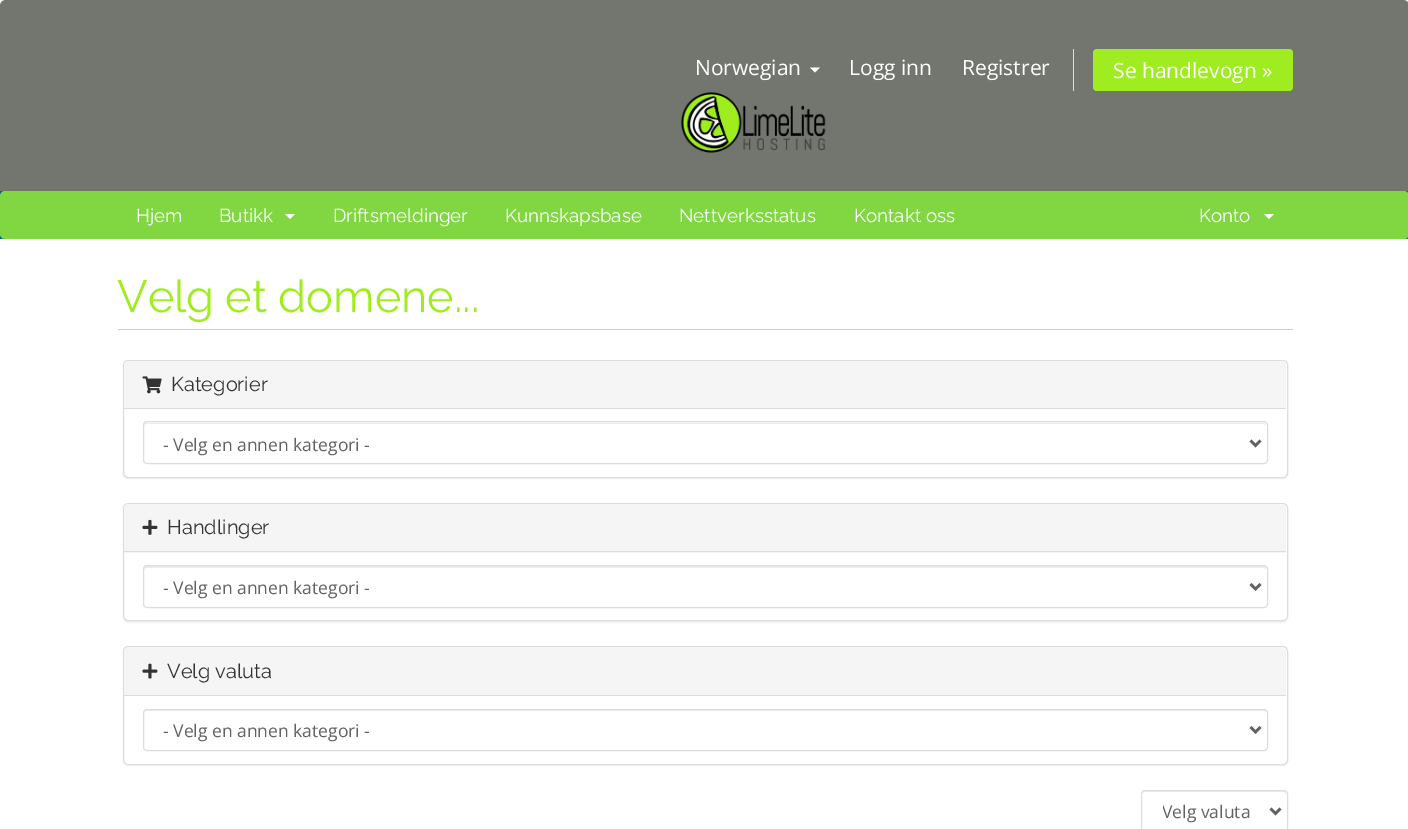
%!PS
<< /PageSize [1408 829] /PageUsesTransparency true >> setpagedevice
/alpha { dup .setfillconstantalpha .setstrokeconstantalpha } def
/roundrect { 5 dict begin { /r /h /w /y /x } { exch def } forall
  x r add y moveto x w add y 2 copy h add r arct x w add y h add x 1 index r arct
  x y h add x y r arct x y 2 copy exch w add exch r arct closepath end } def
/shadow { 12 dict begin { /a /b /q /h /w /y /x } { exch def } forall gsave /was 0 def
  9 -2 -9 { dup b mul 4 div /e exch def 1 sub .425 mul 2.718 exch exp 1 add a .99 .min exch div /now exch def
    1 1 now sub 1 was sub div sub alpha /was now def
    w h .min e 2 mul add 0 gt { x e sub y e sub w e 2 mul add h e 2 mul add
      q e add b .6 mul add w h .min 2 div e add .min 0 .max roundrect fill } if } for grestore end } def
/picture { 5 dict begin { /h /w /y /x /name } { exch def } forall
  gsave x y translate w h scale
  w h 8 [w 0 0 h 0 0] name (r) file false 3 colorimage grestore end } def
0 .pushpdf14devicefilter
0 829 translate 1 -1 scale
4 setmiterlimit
0.973 setgray
0 0 1408 829 rectfill
0.447 0.463 0.435 setrgbcolor
newpath 6 0 moveto 1403 0 lineto 1406.5 0 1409 2.5 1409 6 curveto 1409 191 lineto 0 191 lineto 0 6 lineto 0 2.5 2.5 0 6 0 curveto closepath fill
/OpenSans-Regular [21 0 0 -21 0 0] selectfont
1 setgray
695 75 moveto (Norwegian) show
newpath 810 67.5 moveto 820 67.5 lineto 815 72.5 lineto closepath fill
849 75 moveto (Logg inn) show
962 75 moveto (Registrer) show
0.867 setgray
1073 49 1 42 rectfill
0.624 0.929 0.125 setrgbcolor
1093 49 200 42 4 roundrect fill
1 setgray
1113 78 moveto (Se handlevogn ») show
(img1.rgb) 681 92 145 61 picture
0 0.4 0.529 setrgbcolor
0 191 1408 48 rectfill
0.506 0.843 0.259 setrgbcolor
0 191 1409 48 5 roundrect fill
/Raleway-Regular [18.75 0 0 -18.75 0 0] selectfont
1 setgray
136 222 moveto (Hjem) show
219 222 moveto (Butikk) show
newpath 285 214 moveto 295 214 lineto 290 219 lineto closepath fill
333 222 moveto (Driftsmeldinger) show
505 222 moveto (Kunnskapsbase) show
679 222 moveto (Nettverksstatus) show
854 222 moveto (Kontakt oss) show
1199 222 moveto (Konto) show
newpath 1264 214 moveto 1274 214 lineto 1269 219 lineto closepath fill
0 239 1408 590 rectfill
0.8 setgray
118 329 1175 1 rectfill
/Raleway-Regular [45 0 0 -45 0 0] selectfont
0.624 0.929 0.125 setrgbcolor
117 312 moveto (Velg et domene...) show
0 setgray
123 361 1165 118 5 0.5 0.05 shadow
1 setgray
123.5 360.5 1164 117 4.5 roundrect gsave fill grestore
0.867 setgray
stroke
0.961 setgray
newpath 128 361 moveto 1282 361 lineto 1284 361 1286 363 1286 365 curveto 1286 409 lineto 124 409 lineto 124 365 lineto 124 363 126 361 128 361 curveto closepath fill
0.867 setgray
124 408 1162 1 rectfill
(img2.rgb) 142 376 20 18 picture
/Raleway-Regular [20 0 0 -20 0 0] selectfont
0.2 setgray
171 391 moveto (Kategorier) show
0.925 setgray
newpath 146 424 moveto 1264 424 lineto 1265 424 1266 425 1266 426 curveto 1266 424 1265 423 1264 423 curveto 146 423 lineto 145 423 144 424 144 426 curveto 144 425 145 424 146 424 curveto closepath fill
0.867 setgray
143.5 421.5 1124 42 3.5 roundrect stroke
0.384 setgray
2.5 setlinewidth
newpath 1250.5 440.5 moveto 1255.5 445.5 lineto 1260.5 440.5 lineto stroke
/OpenSans-Regular [17.5 0 0 -17.5 0 0] selectfont
163 451 moveto (- Velg en annen kategori -) show
0 setgray
123 504 1165 119 5 0.5 0.05 shadow
1 setgray
123.5 503.5 1164 117 4.5 roundrect gsave fill grestore
0.867 setgray
1 setlinewidth
stroke
0.961 setgray
newpath 128 504 moveto 1282 504 lineto 1284 504 1286 506 1286 508 curveto 1286 553 lineto 124 553 lineto 124 508 lineto 124 506 126 504 128 504 curveto closepath fill
0.867 setgray
124 551 1162 1 rectfill
(img3.rgb) 142 519 16 16 picture
/Raleway-Regular [20 0 0 -20 0 0] selectfont
0.2 setgray
167 534 moveto (Handlinger) show
0.925 setgray
newpath 146 568 moveto 1264 568 lineto 1265 568 1266 569 1266 570 curveto 1266 568 1266 566 1264 566 curveto 146 566 lineto 144 566 144 568 144 570 curveto 144 569 145 568 146 568 curveto closepath fill
0.867 setgray
143.5 565.5 1124 42 3.5 roundrect stroke
0.384 setgray
2.5 setlinewidth
newpath 1250.5 584 moveto 1255.5 589 lineto 1260.5 584 lineto stroke
/OpenSans-Regular [17.5 0 0 -17.5 0 0] selectfont
163 594 moveto (- Velg en annen kategori -) show
0 setgray
123 648 1165 118 5 0.5 0.05 shadow
1 setgray
123.5 646.5 1164 118 4.5 roundrect gsave fill grestore
0.867 setgray
1 setlinewidth
stroke
0.961 setgray
newpath 128 648 moveto 1282 648 lineto 1284 648 1286 650 1286 652 curveto 1286 696 lineto 124 696 lineto 124 652 lineto 124 650 126 648 128 648 curveto closepath fill
0.867 setgray
124 695 1162 1 rectfill
(img4.rgb) 142 663 16 16 picture
/Raleway-Regular [20 0 0 -20 0 0] selectfont
0.2 setgray
167 678 moveto (Velg valuta) show
0.925 setgray
newpath 146 711 moveto 1264 711 lineto 1265 711 1266 712 1266 714 curveto 1266 712 1266 710 1264 710 curveto 146 710 lineto 144 710 144 712 144 714 curveto 144 712 145 711 146 711 curveto closepath fill
0.867 setgray
143.5 709.5 1124 41 3.5 roundrect stroke
0.384 setgray
2.5 setlinewidth
newpath 1250.5 727 moveto 1255.5 732 lineto 1260.5 727 lineto stroke
/OpenSans-Regular [17.5 0 0 -17.5 0 0] selectfont
163 737 moveto (- Velg en annen kategori -) show
0.925 setgray
newpath 1145 792 moveto 1284 792 lineto 1285 793 lineto 1286 795 lineto 1286 794 lineto 1286 792 1285 791 1284 791 curveto 1146 791 lineto 1144 791 1143 792 1143 793 curveto closepath fill
0.867 setgray
1 setlinewidth
1141.5 790.5 146 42 3.5 roundrect stroke
0.384 setgray
2.5 setlinewidth
newpath 1270.5 808.5 moveto 1275.5 813.5 lineto 1280.5 808.5 lineto stroke
gsave
1163 799 88 26 rectclip
1162 818 moveto (Velg valuta) show
grestore
.poppdf14devicefilter showpage
